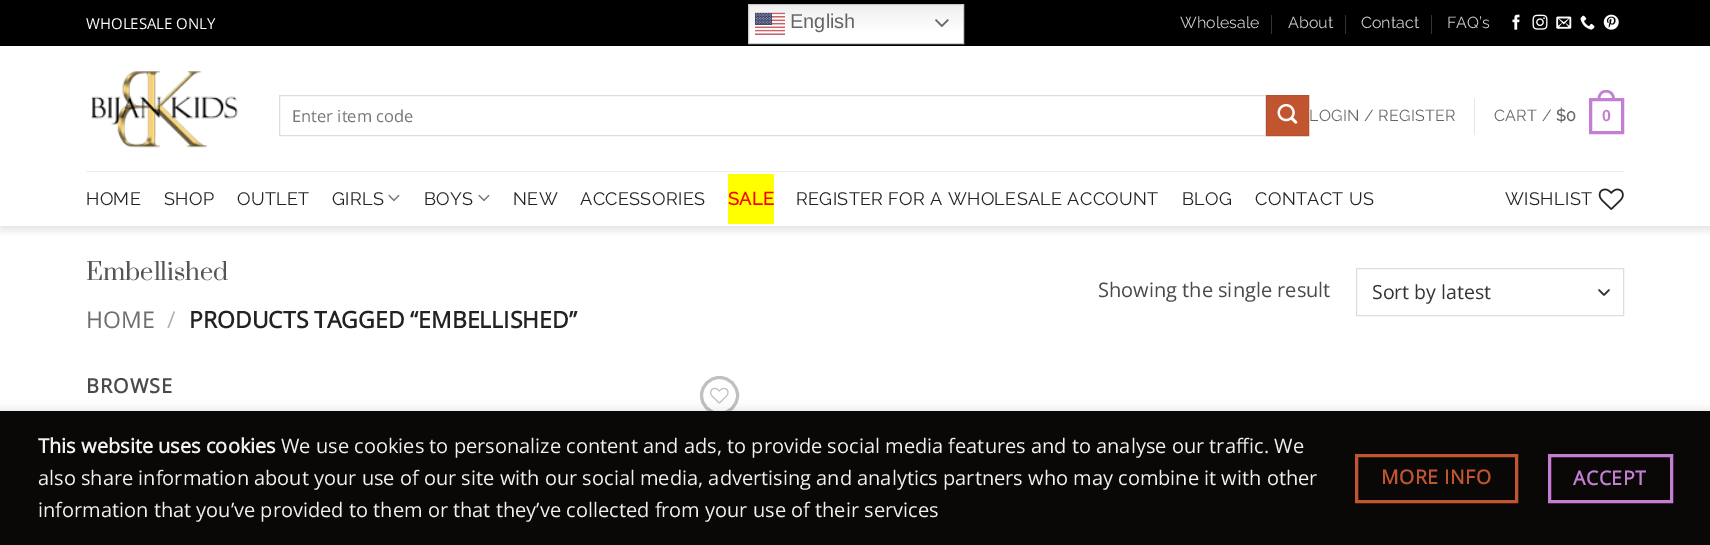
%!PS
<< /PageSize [1710 545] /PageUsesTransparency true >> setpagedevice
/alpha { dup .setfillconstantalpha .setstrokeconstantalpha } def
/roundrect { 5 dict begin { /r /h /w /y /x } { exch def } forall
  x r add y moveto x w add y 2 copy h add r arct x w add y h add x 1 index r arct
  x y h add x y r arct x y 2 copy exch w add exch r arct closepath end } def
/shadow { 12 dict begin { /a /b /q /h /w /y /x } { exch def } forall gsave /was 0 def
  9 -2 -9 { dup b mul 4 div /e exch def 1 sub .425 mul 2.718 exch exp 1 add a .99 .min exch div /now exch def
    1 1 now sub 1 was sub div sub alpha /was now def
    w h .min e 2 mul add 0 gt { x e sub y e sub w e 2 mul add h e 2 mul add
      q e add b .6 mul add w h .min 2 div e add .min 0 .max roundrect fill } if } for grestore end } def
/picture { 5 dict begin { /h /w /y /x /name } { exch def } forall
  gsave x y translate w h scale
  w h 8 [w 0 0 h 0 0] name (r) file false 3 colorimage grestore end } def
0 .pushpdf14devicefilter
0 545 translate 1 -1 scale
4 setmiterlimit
1 setgray
0 0 1710 545 rectfill
gsave
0 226 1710 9 rectclip
0 setgray
1 1 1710 227 0 6 0.15 shadow
grestore
0 setgray
0 0 1710 46 rectfill
/OpenSans-Regular [15 0 0 -15 0 0] selectfont
1 setgray
86 29 moveto (WHOLESALE ONLY) show
gsave newpath 749 5 moveto 963 5 lineto 963 43 lineto 749 43 lineto closepath clip newpath
<< /ShadingType 2 /ColorSpace /DeviceRGB /Coords [856 3.7 856 44] /Extend [true true] /Function << /FunctionType 3 /Domain [0 1] /Functions [<< /FunctionType 2 /Domain [0 1] /C0 [0.937 0.937 0.937] /C1 [1 1 1] /N 1 >> << /FunctionType 2 /Domain [0 1] /C0 [1 1 1] /C1 [1 1 1] /N 1 >>] /Bounds [0.7] /Encode [0 1 0 1] >> >> shfill grestore
0.8 setgray
748.5 4.5 215 39 rectstroke
(img1.rgb) 755 12 30 23 picture
/LiberationSans-Regular [20 0 0 -20 0 0] selectfont
0.396 setgray
790 28 moveto (English) show
(img2.rgb) 935 19 14 9 picture
/Raleway-Thin [16 0 0 -16 0 0] selectfont
0.8 setgray
1180 28 moveto (Wholesale) show
0.2 setgray
1271 15 1 19 rectfill
0.8 setgray
1288 28 moveto (About) show
0.2 setgray
1345 15 1 19 rectfill
0.8 setgray
1361 28 moveto (Contact) show
0.2 setgray
1431 15 1 19 rectfill
0.8 setgray
1447 28 moveto (FAQ’s) show
(img3.rgb) 1512 14 8 16 picture
(img4.rgb) 1532 14 16 16 picture
(img5.rgb) 1556 16 16 13 picture
(img6.rgb) 1580 15 15 15 picture
(img7.rgb) 1603 14 16 16 picture
(img8.rgb) 91 71 147 77 picture
0.867 setgray
279.5 95.5 986 40 rectstroke
/OpenSans-Regular [16.5 0 0 -16.5 0 0] selectfont
0.459 setgray
292 122 moveto (Enter item code) show
0.753 0.333 0.188 setrgbcolor
newpath 1266.5 95.5 moveto 1308.5 95.5 lineto 1308.5 135.5 lineto 1266.5 135.5 lineto closepath gsave fill grestore
0.714 0.318 0.18 setrgbcolor
stroke
(img9.rgb) 1277 103 21 21 picture
/Raleway-Thin [16 0 0 -16 0 0] selectfont
0.396 setgray
1309 121 moveto 0.3 0 (LOGIN / REGISTER) ashow
0.902 setgray
1474 98 1 37 rectfill
0.396 setgray
1494 121 moveto 0.3 0 (CART /) ashow
/Raleway-Bold [16 0 0 -16 0 0] selectfont
1556 121 moveto 0.3 0 ($0) ashow
0.769 0.494 0.827 setrgbcolor
3 setlinewidth
1590.5 99.5 32 33 rectstroke
newpath 1606 90 moveto 1612 90 1615 94.5 1615 100 curveto 1597.5 100 lineto 1597.5 94.5 1600.5 90 1606 90 curveto closepath 1606 92.5 moveto 1610.5 92.5 1612.5 96 1612.5 100 curveto 1600 100 lineto 1600 96 1602 92.5 1606 92.5 curveto closepath eofill
/LiberationSans-Bold [16 0 0 -16 0 0] selectfont
1602 121 moveto 0.3 0 (0) ashow
0.929 setgray
86 171 1538 1 rectfill
/Raleway-Thin [18 0 0 -18 0 0] selectfont
0.133 setgray
86 205 moveto 0.35 0 (HOME) ashow
164 205 moveto 0.35 0 (SHOP) ashow
237 205 moveto 0.35 0 (OUTLET) ashow
332 205 moveto 0.35 0 (GIRLS) ashow
(img10.rgb) 388 194 12 8 picture
424 205 moveto 0.35 0 (BOYS) ashow
(img10.rgb) 478 194 12 8 picture
513 205 moveto 0.35 0 (NEW) ashow
580 205 moveto 0.35 0 (ACCESSORIES) ashow
1 1 0 setrgbcolor
728 174 46 50 rectfill
/Raleway-Bold [18 0 0 -18 0 0] selectfont
1 0 0 setrgbcolor
728 205 moveto 0.35 0 (SALE) ashow
/Raleway-Thin [18 0 0 -18 0 0] selectfont
0.133 setgray
796 205 moveto 0.35 0 (REGISTER FOR A WHOLESALE ACCOUNT) ashow
1182 205 moveto 0.35 0 (BLOG) ashow
1255 205 moveto 0.35 0 (CONTACT US) ashow
1505 205 moveto 0.35 0 (WISHLIST) ashow
(img11.rgb) 1598 188 26 22 picture
/Suranna-Regular [30 0 0 -30 0 0] selectfont
0.333 setgray
86 280 moveto (Embellished) show
/OpenSans-Regular [23 0 0 -23 0 0] selectfont
0.431 setgray
86 328 moveto (HOME) show
0.698 setgray
167 328 moveto (/) show
/OpenSans-Bold [23 0 0 -23 0 0] selectfont
0.133 setgray
189 328 moveto (PRODUCTS TAGGED “EMBELLISHED”) show
/OpenSans-Regular [20 0 0 -20 0 0] selectfont
0.29 setgray
1098 297 moveto (Showing the single result) show
0.2 setgray
1.7 setlinewidth
1 setlinecap
1 setlinejoin
newpath 1599 290 moveto 1604 295 lineto 1609 290 lineto stroke
0.867 setgray
1 setlinewidth
0 setlinecap
0 setlinejoin
1356.5 268.5 267 47 rectstroke
/OpenSans-Regular [19.5 0 0 -19.5 0 0] selectfont
0.2 setgray
1372 299 moveto (Sort by latest) show
/OpenSans-Bold [20 0 0 -20 0 0] selectfont
0.29 setgray
86 393 moveto 1 0 (BROWSE) ashow
0.753 setgray
3 setlinewidth
newpath 719.5 395.5 18 0 360 arc closepath stroke
(img12.rgb) 710 387 19 17 picture
0 setgray
0 411 1710 134 0 5.5 0.14 shadow
0.039 0.031 0.027 setrgbcolor
0 411 1710 134 rectfill
0.945 setgray
38 453 moveto (This website uses cookies) show
/OpenSans-Regular [20 0 0 -20 0 0] selectfont
281 453 moveto (We use cookies to personalize content and ads, to provide social media features and to analyse our traffic. We) show
38 485 moveto (also share information about your use of our site with our social media, advertising and analytics partners who may combine it with other) show
38 517 moveto (information that you’ve provided to them or that they’ve collected from your use of their services) show
0.753 0.333 0.188 setrgbcolor
1356.5 455.5 160 46 rectstroke
/OpenSans-Bold [19.5 0 0 -19.5 0 0] selectfont
1381 484 moveto 0.5 0 (MORE INFO) ashow
0.769 0.494 0.827 setrgbcolor
1549.5 455.5 122 46 rectstroke
1573 485 moveto 0.5 0 (ACCEPT) ashow
.poppdf14devicefilter showpage
